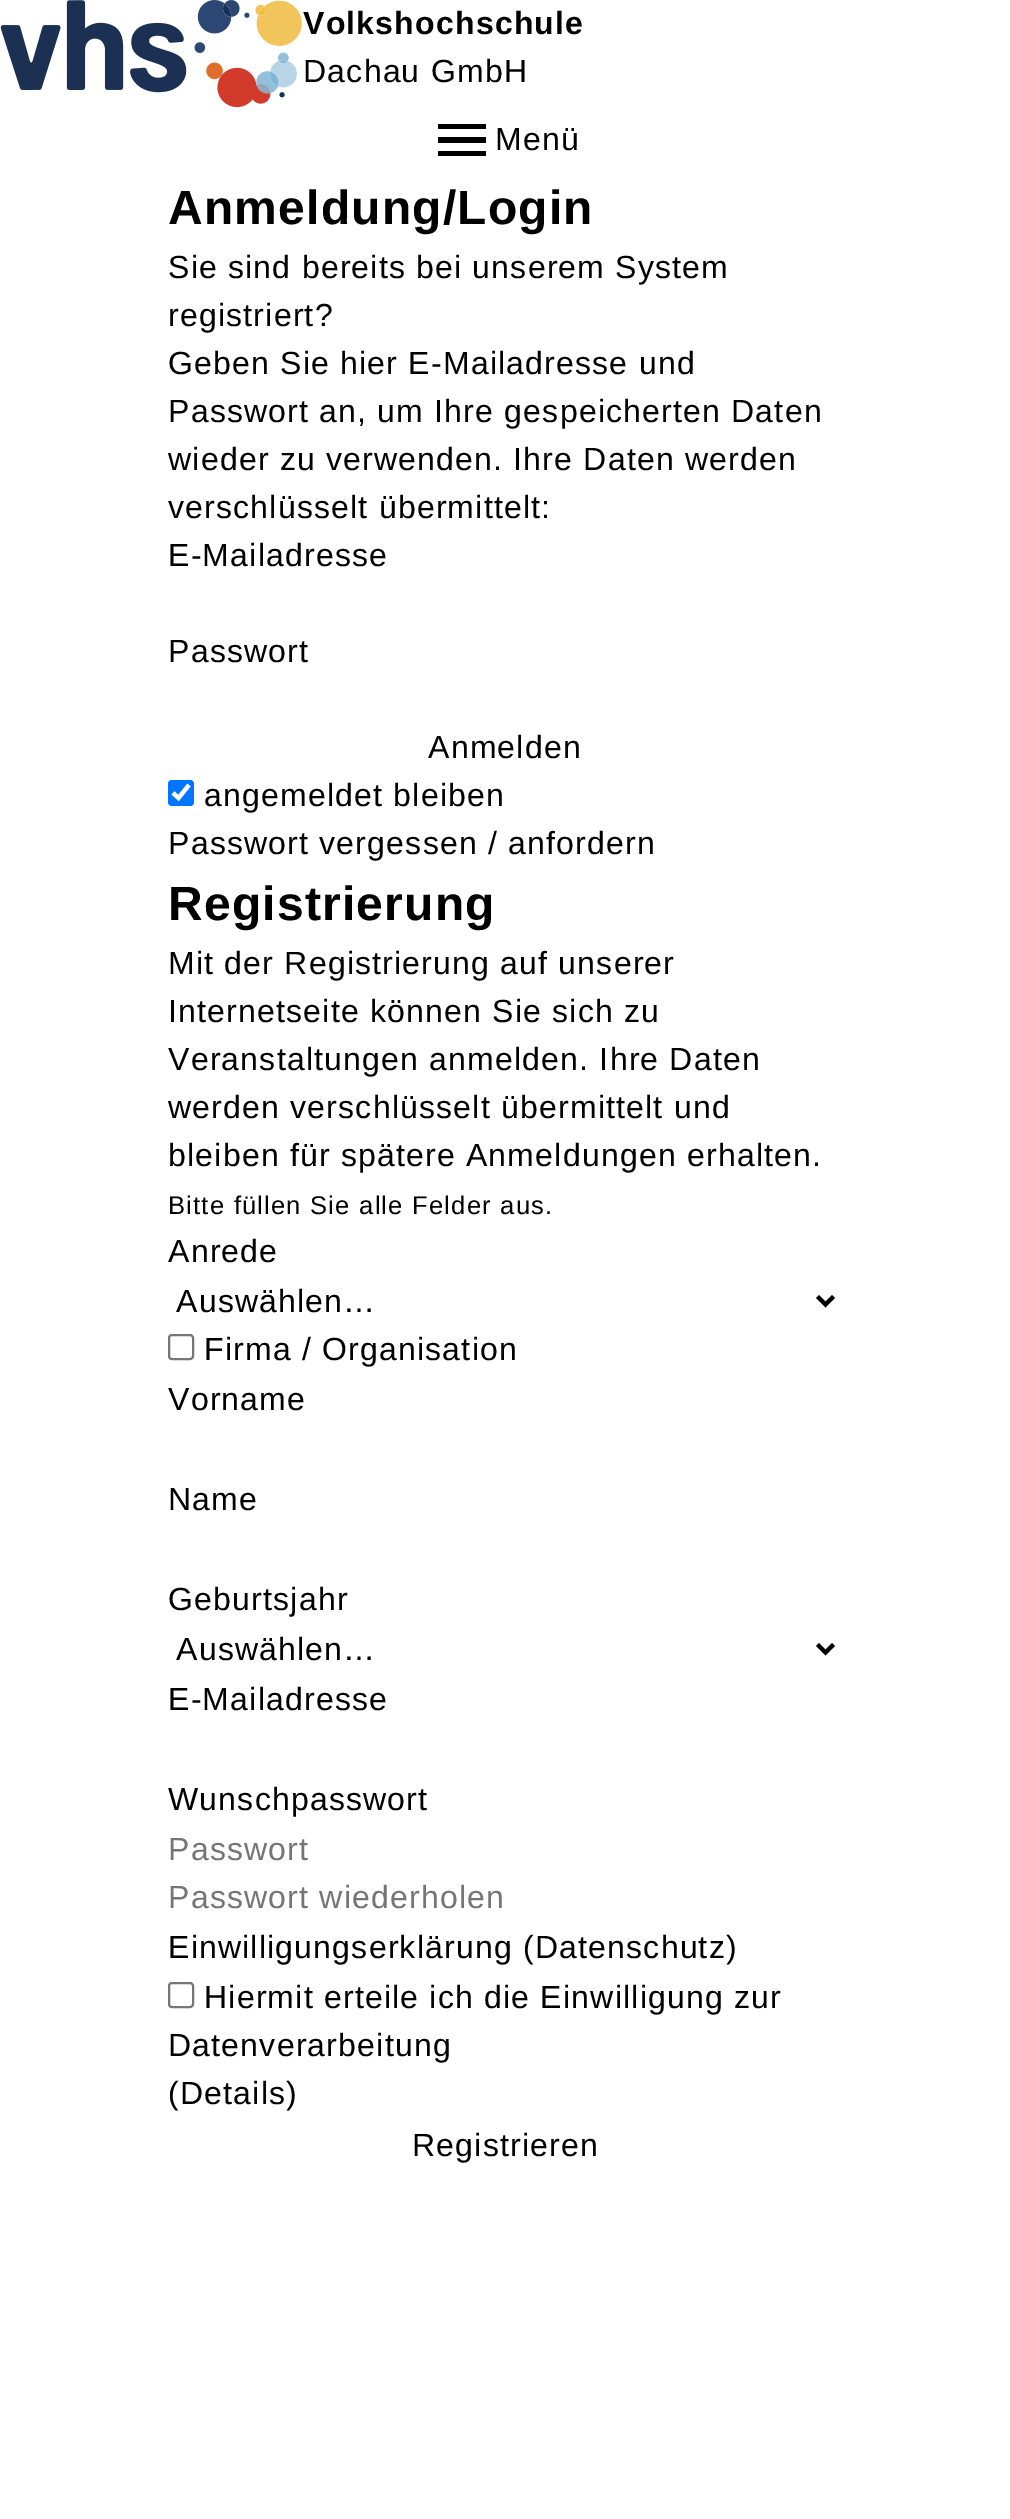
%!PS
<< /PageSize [1010 2519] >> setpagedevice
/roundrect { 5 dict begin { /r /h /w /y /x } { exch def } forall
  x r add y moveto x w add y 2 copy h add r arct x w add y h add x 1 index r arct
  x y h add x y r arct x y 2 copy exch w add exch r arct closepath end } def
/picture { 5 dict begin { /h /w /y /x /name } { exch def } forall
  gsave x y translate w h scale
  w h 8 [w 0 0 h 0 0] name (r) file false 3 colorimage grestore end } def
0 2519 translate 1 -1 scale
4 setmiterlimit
1 setgray
0 0 1010 2519 rectfill
(img1.rgb) 0 0 302 108 picture
/LiberationSans-Bold [32 0 0 -32 0 0] selectfont
0 setgray
303 34 moveto 1.2 0 (Volkshochschule) ashow
/LiberationSans-Regular [32 0 0 -32 0 0] selectfont
303 82 moveto 1.2 0 (Dachau GmbH) ashow
newpath 438 124 moveto 486 124 lineto 486 129 lineto 438 129 lineto 438 124 lineto 438 137 moveto 486 137 lineto 486 143 lineto 438 143 lineto 438 137 lineto 438 151 moveto 486 151 lineto 486 156 lineto 438 156 lineto closepath fill
495 150 moveto 1.2 0 (Menü) ashow
/LiberationSans-Bold [48 0 0 -48 0 0] selectfont
168 224 moveto 1.2 0 (Anmeldung/Login) ashow
/LiberationSans-Regular [32 0 0 -32 0 0] selectfont
168 278 moveto 1.2 0 (Sie sind bereits bei unserem System) ashow
168 326 moveto 1.2 0 (registriert?) ashow
168 374 moveto 1.2 0 (Geben Sie hier E-Mailadresse und) ashow
168 422 moveto 1.2 0 (Passwort an, um Ihre gespeicherten Daten) ashow
168 470 moveto 1.2 0 (wieder zu verwenden. Ihre Daten werden) ashow
168 518 moveto 1.2 0 (verschlüsselt übermittelt:) ashow
168 566 moveto 1.2 0 (E-Mailadresse) ashow
168 662 moveto 1.2 0 (Passwort) ashow
428 758 moveto 1.2 0 (Anmelden) ashow
0 0.459 1 setrgbcolor
168 780 26 26 4 roundrect fill
1 setgray
4.2 setlinewidth
newpath 173 793 moveto 178.5 798 lineto 189 785 lineto stroke
0 setgray
204 806 moveto 1.2 0 (angemeldet bleiben) ashow
168 854 moveto 1.2 0 (Passwort vergessen / anfordern) ashow
/LiberationSans-Bold [48 0 0 -48 0 0] selectfont
168 920 moveto 1.2 0 (Registrierung) ashow
/LiberationSans-Regular [32 0 0 -32 0 0] selectfont
168 974 moveto 1.2 0 (Mit der Registrierung auf unserer) ashow
168 1022 moveto 1.2 0 (Internetseite können Sie sich zu) ashow
168 1070 moveto 1.2 0 (Veranstaltungen anmelden. Ihre Daten) ashow
168 1118 moveto 1.2 0 (werden verschlüsselt übermittelt und) ashow
168 1166 moveto 1.2 0 (bleiben für spätere Anmeldungen erhalten.) ashow
/LiberationSans-Regular [25.6 0 0 -25.6 0 0] selectfont
168 1214 moveto 1.2 0 (Bitte füllen Sie alle Felder aus.) ashow
/LiberationSans-Regular [32 0 0 -32 0 0] selectfont
168 1262 moveto 1.2 0 (Anrede) ashow
4 setlinewidth
newpath 817.5 1296.5 moveto 825.5 1304.5 lineto 833.5 1296.5 lineto stroke
176 1312 moveto 1.2 0 (Auswählen…) ashow
0.463 setgray
2 setlinewidth
169 1335 24 24 3 roundrect stroke
0 setgray
204 1360 moveto 1.2 0 (Firma / Organisation) ashow
168 1410 moveto 1.2 0 (Vorname) ashow
168 1510 moveto 1.2 0 (Name) ashow
168 1610 moveto 1.2 0 (Geburtsjahr) ashow
4 setlinewidth
newpath 817.5 1644.5 moveto 825.5 1652.5 lineto 833.5 1644.5 lineto stroke
176 1660 moveto 1.2 0 (Auswählen…) ashow
168 1710 moveto 1.2 0 (E-Mailadresse) ashow
168 1810 moveto 1.2 0 (Wunschpasswort) ashow
0.459 setgray
168 1860 moveto 1.2 0 (Passwort) ashow
168 1908 moveto 1.2 0 (Passwort wiederholen) ashow
0 setgray
168 1958 moveto 1.2 0 (Einwilligungserklärung \(Datenschutz\)) ashow
0.463 setgray
2 setlinewidth
169 1983 24 24 3 roundrect stroke
0 setgray
204 2008 moveto 1.2 0 (Hiermit erteile ich die Einwilligung zur) ashow
168 2056 moveto 1.2 0 (Datenverarbeitung) ashow
168 2104 moveto 1.2 0 (\(Details\)) ashow
412 2156 moveto 1.2 0 (Registrieren) ashow
showpage
